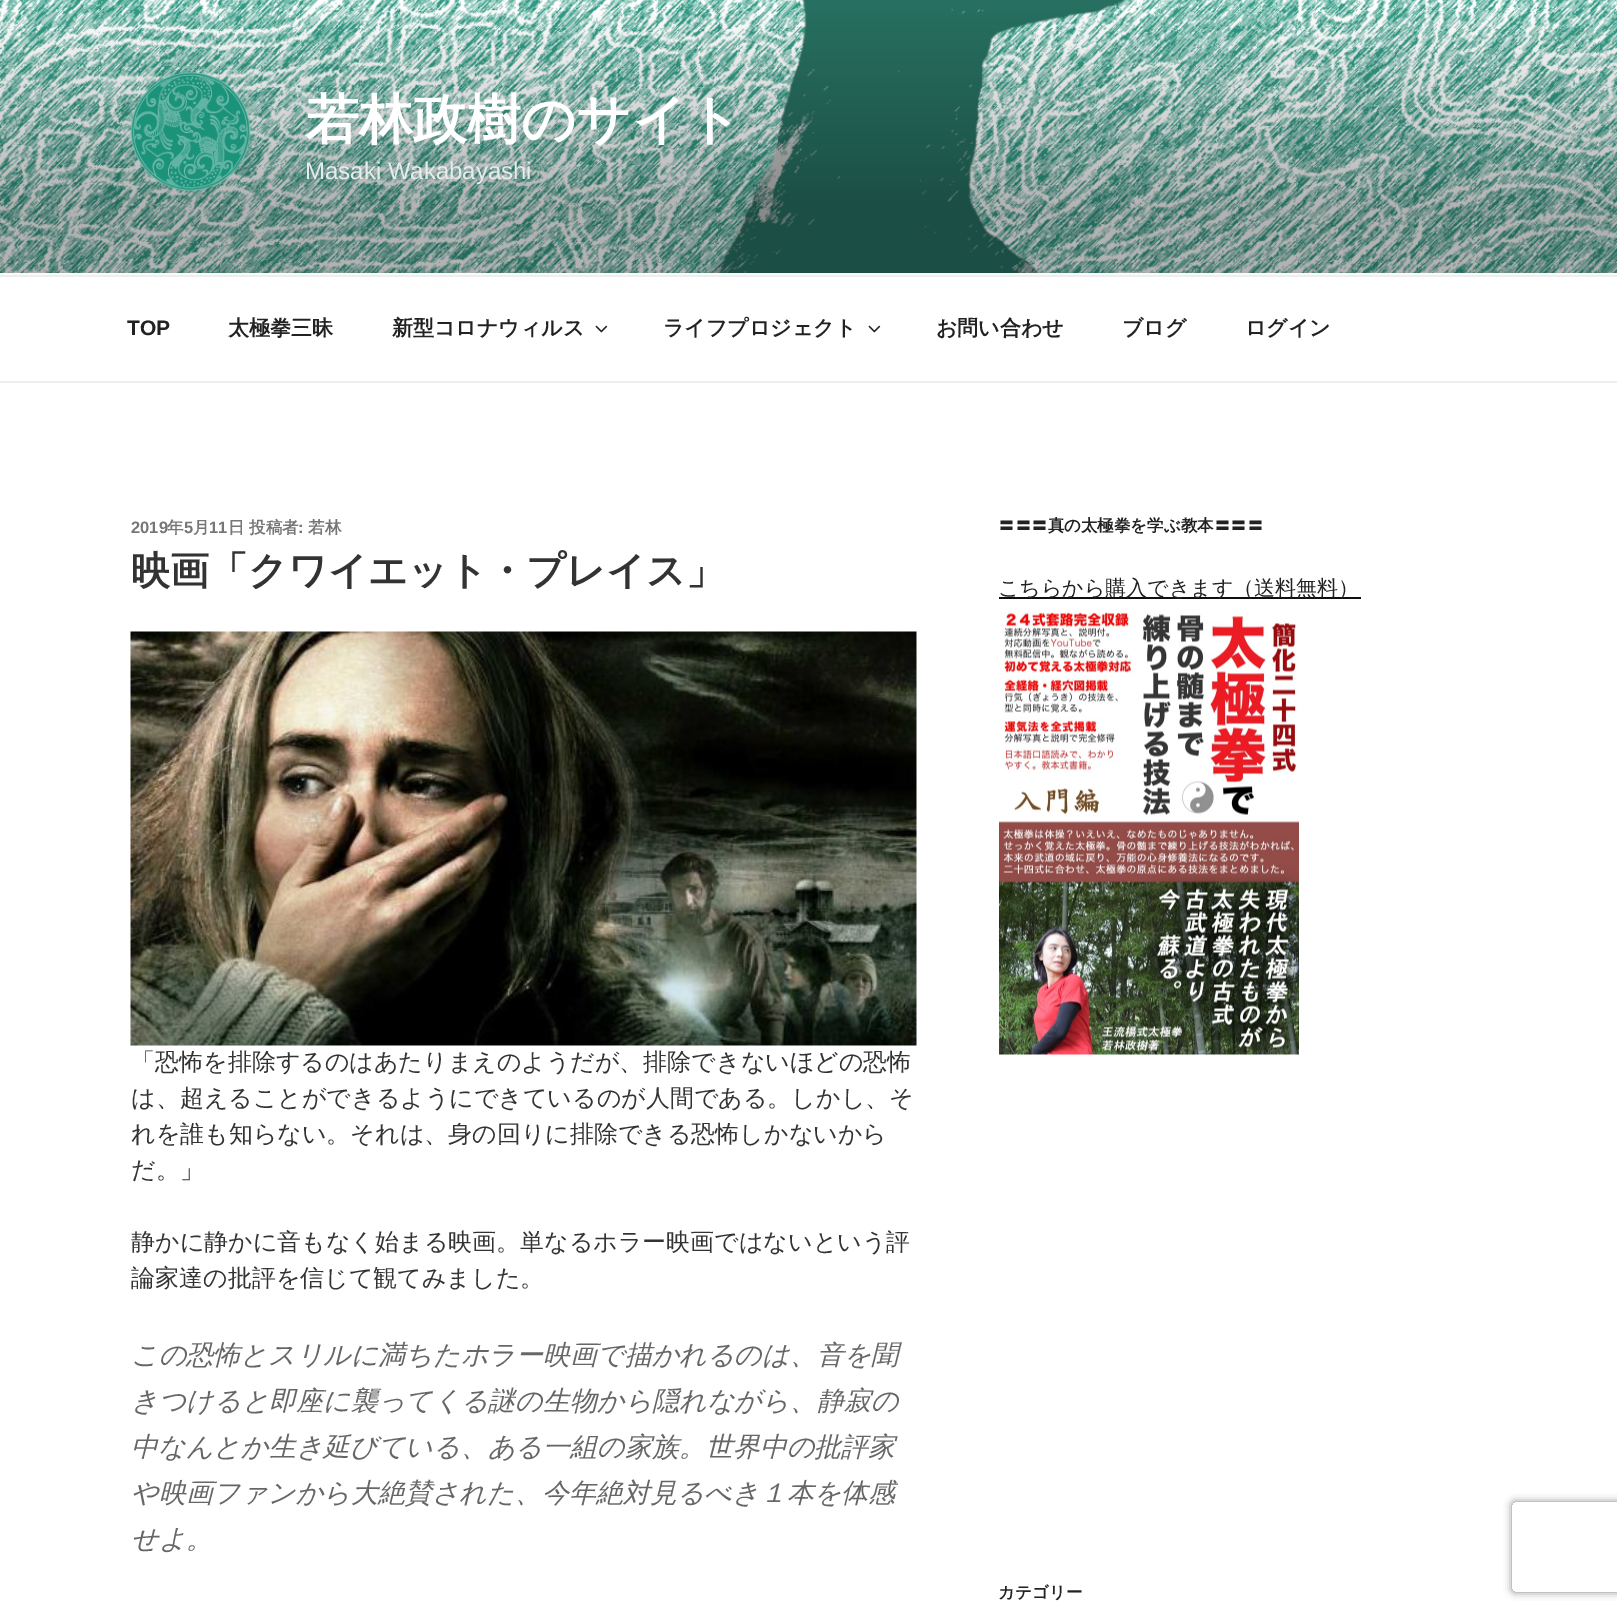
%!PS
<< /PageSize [1617 1612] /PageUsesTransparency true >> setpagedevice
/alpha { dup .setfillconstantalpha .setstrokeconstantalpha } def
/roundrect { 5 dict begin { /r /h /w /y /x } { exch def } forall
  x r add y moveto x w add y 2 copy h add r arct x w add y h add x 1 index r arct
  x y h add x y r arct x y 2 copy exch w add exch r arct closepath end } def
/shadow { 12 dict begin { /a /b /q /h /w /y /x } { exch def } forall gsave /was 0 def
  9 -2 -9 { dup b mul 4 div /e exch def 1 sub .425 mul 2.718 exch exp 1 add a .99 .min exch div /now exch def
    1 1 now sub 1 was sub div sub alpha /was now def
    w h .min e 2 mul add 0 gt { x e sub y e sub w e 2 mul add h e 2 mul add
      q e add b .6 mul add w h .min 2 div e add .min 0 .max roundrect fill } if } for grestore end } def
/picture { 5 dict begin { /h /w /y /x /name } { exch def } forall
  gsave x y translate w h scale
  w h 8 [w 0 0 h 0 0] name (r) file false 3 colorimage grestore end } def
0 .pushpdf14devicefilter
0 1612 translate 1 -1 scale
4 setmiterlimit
1 setgray
0 0 1617 1612 rectfill
0.98 setgray
0 273 1617 2 rectfill
(img1.rgb) 0 0 1617 273 picture
(img2.rgb) 130 72 121 120 picture
/WenQuanYiZenHei-Bold [54 0 0 -54 0 0] selectfont
1 setgray
305 138 moveto (若林政樹のサイト) show
/LiberationSans-Regular [24 0 0 -24 0 0] selectfont
0.902 0.925 0.922 setrgbcolor
305 179 moveto (Masaki Wakabayashi) show
0.933 setgray
0 275 1617 2 rectfill
0 381 1617 2 rectfill
/LiberationSans-Bold [21 0 0 -21 0 0] selectfont
0.133 setgray
127 335 moveto (TOP) show
/WenQuanYiZenHei-Bold [21 0 0 -21 0 0] selectfont
228 335 moveto (太極拳三昧) show
392 335 moveto (新型コロナウィルス) show
(img3.rgb) 595 325 13 8 picture
663 335 moveto (ライフプロジェクト) show
(img3.rgb) 868 325 13 8 picture
936 335 moveto (お問い合わせ) show
1122 335 moveto (ブログ) show
1245 335 moveto (ログイン) show
/LiberationSans-Bold [16.5 0 0 -16.5 0 0] selectfont
0.463 setgray
131 533 moveto (2019) show
/WenQuanYiZenHei-Bold [16.5 0 0 -16.5 0 0] selectfont
167 533 moveto (年) show
/LiberationSans-Bold [16.5 0 0 -16.5 0 0] selectfont
184 533 moveto (5) show
/WenQuanYiZenHei-Bold [16.5 0 0 -16.5 0 0] selectfont
193 533 moveto (月) show
/LiberationSans-Bold [16.5 0 0 -16.5 0 0] selectfont
209 533 moveto (11) show
/WenQuanYiZenHei-Bold [16.5 0 0 -16.5 0 0] selectfont
228 533 moveto (日) show
249 533 moveto (投稿者) show
/LiberationSans-Bold [16.5 0 0 -16.5 0 0] selectfont
298 533 moveto (:) show
/WenQuanYiZenHei-Bold [16.5 0 0 -16.5 0 0] selectfont
308 533 moveto (若林) show
/WenQuanYiZenHei-Bold [39 0 0 -39 0 0] selectfont
0.2 setgray
131 584 moveto (映画「クワイエット・プレイス」) show
(img4.rgb) 130 631 787 415 picture
/WenQuanYiZenHei-Medium [24 0 0 -24 0 0] selectfont
131 1070 moveto (「恐怖を排除するのはあたりまえのようだが、排除できないほどの恐怖) show
131 1106 moveto (は、超えることができるようにできているのが人間である。しかし、そ) show
131 1142 moveto (れを誰も知らない。それは、身の回りに排除できる恐怖しかないから) show
131 1178 moveto (だ。」) show
131 1250 moveto (静かに静かに音もなく始まる映画。単なるホラー映画ではないという評) show
131 1286 moveto (論家達の批評を信じて観てみました。) show
/WenQuanYiZenHei-MediumItalic [27 0 0 -27 0 0] selectfont
0.4 setgray
131 1364 moveto (この恐怖とスリルに満ちたホラー映画で描かれるのは、音を聞) show
131 1410 moveto (きつけると即座に襲ってくる謎の生物から隠れながら、静寂の) show
131 1456 moveto (中なんとか生き延びている、ある一組の家族。世界中の批評家) show
131 1502 moveto (や映画ファンから大絶賛された、今年絶対見るべき１本を体感) show
131 1548 moveto (せよ。) show
/WenQuanYiZenHei-Bold [16.5 0 0 -16.5 0 0] selectfont
0.133 setgray
998 531 moveto (〓〓〓真の太極拳を学ぶ教本〓〓〓) show
0.059 setgray
999 597 362 2 rectfill
/WenQuanYiZenHei-Medium [21 0 0 -21 0 0] selectfont
0.133 setgray
998 595 moveto (こちらから購入できます（送料無料）) show
(img5.rgb) 999 612 300 443 picture
/WenQuanYiZenHei-Bold [16.5 0 0 -16.5 0 0] selectfont
998 1598 moveto (カテゴリー) show
gsave
newpath 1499 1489 moveto 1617 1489 lineto 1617 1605 lineto 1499 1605 lineto closepath 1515 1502 moveto 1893 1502 lineto 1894.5 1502 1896 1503.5 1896 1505 curveto 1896 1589 lineto 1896 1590.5 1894.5 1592 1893 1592 curveto 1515 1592 lineto 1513.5 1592 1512 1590.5 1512 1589 curveto 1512 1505 lineto 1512 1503.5 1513.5 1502 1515 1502 curveto closepath eoclip newpath
0.502 setgray
1512 1502 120 90 3 4 1 shadow
grestore
.poppdf14devicefilter showpage
